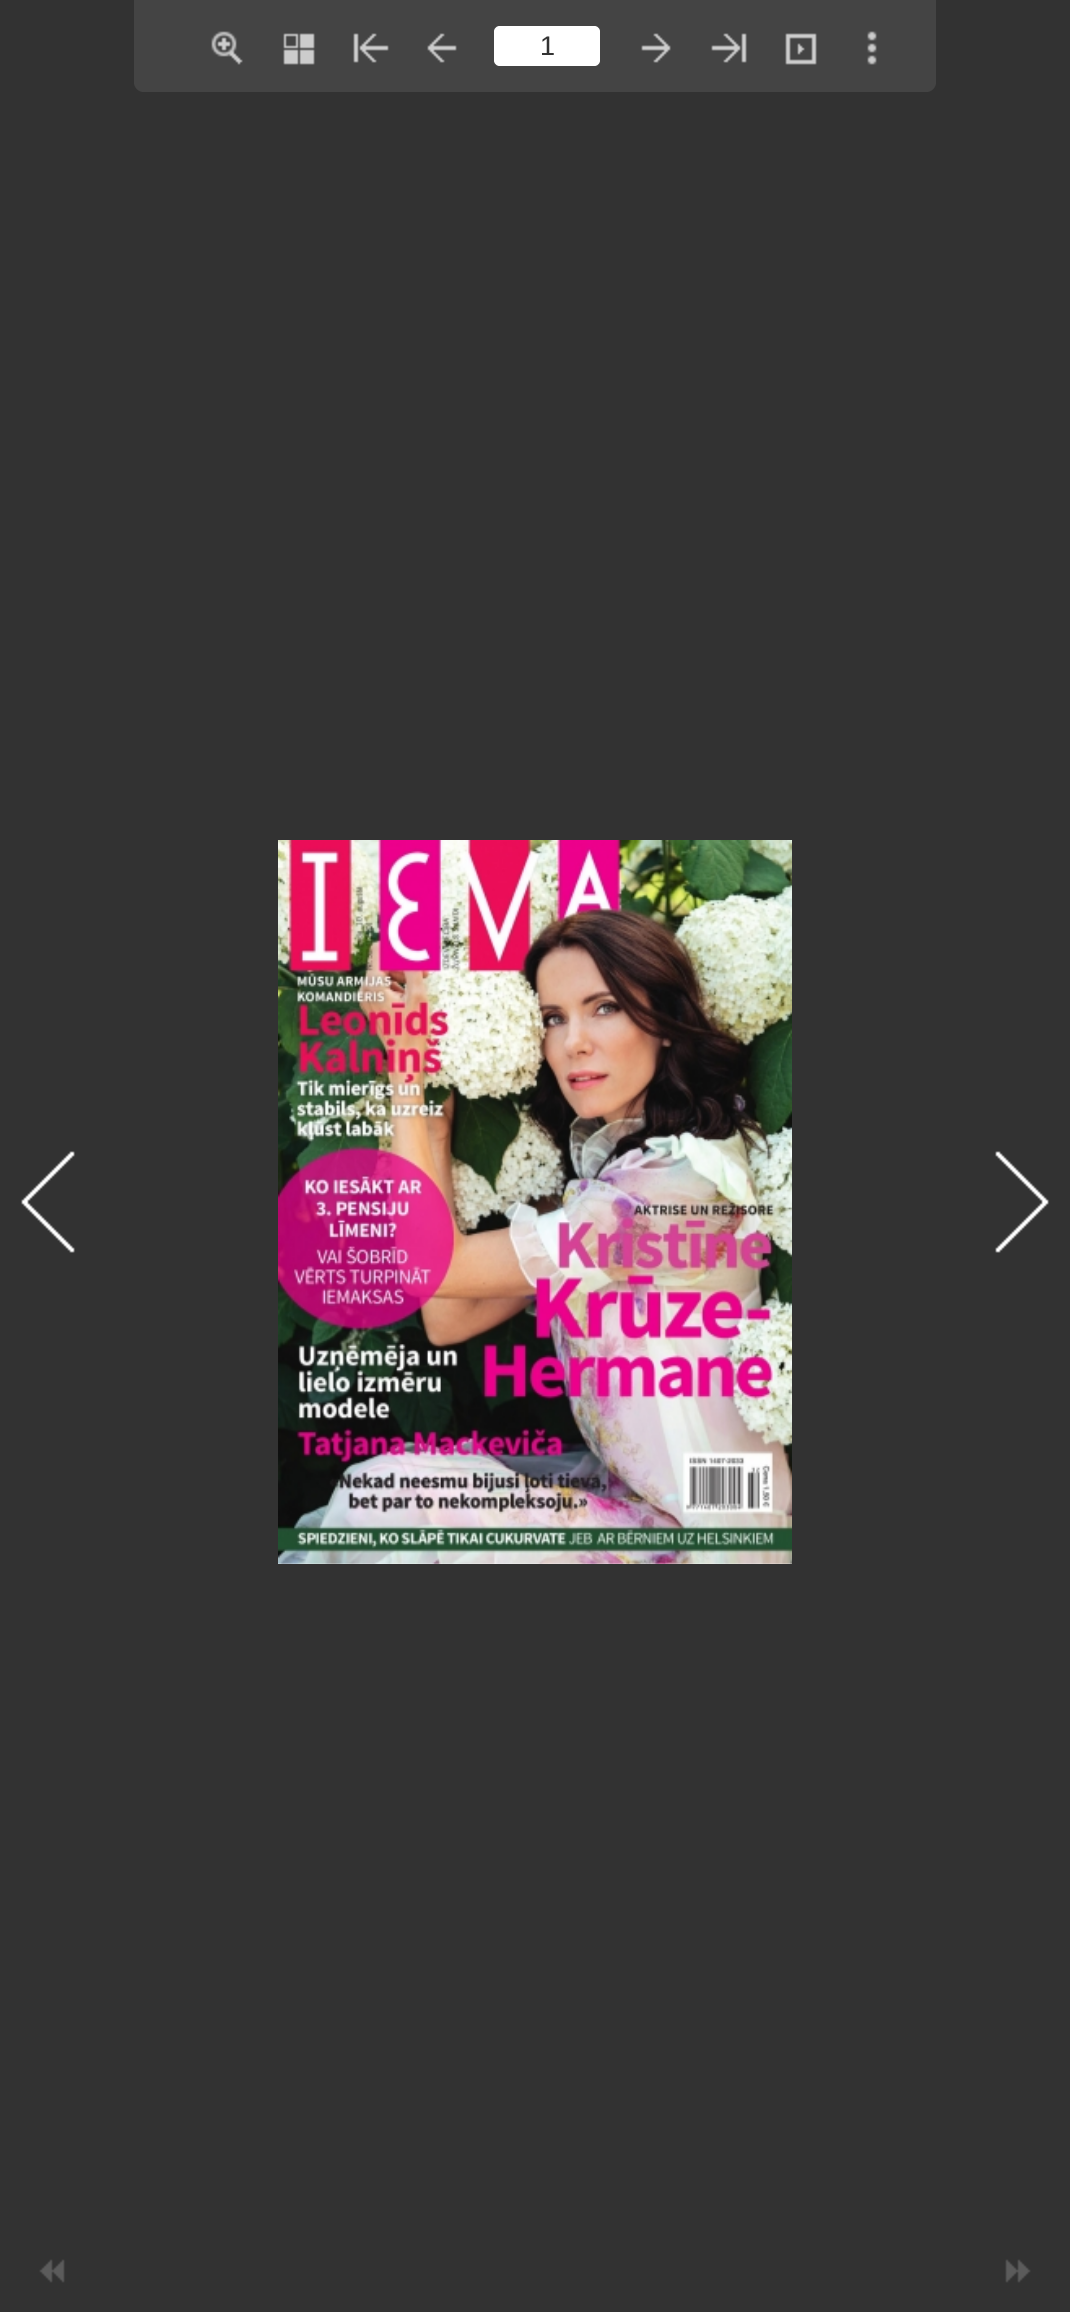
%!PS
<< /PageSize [1070 2312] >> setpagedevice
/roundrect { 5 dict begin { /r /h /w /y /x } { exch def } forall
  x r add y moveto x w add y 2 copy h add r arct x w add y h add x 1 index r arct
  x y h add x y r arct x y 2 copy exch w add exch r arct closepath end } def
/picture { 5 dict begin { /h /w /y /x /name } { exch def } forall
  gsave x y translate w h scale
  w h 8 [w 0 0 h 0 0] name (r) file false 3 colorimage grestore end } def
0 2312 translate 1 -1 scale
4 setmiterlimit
0.196 setgray
0 0 1070 2312 rectfill
0.267 setgray
newpath 134 0 moveto 936 0 lineto 936 82 lineto 936 87.5 931.5 92 926 92 curveto 144 92 lineto 138.5 92 134 87.5 134 82 curveto closepath fill
(img1.rgb) 211 31 32 34 picture
(img2.rgb) 283 33 32 32 picture
(img3.rgb) 353 33 36 30 picture
(img4.rgb) 427 33 30 30 picture
1 setgray
494 26 106 40 6 roundrect fill
/LiberationSans-Regular [27 0 0 -27 0 0] selectfont
0.2 setgray
540 55 moveto (1) show
(img5.rgb) 641 33 30 30 picture
(img6.rgb) 711 33 36 30 picture
(img7.rgb) 785 33 32 32 picture
(img8.rgb) 867 31 10 34 picture
(img9.rgb) 21 1151 54 102 picture
(img10.rgb) 278 840 514 724 picture
(img11.rgb) 995 1151 54 102 picture
(img12.rgb) 39 2259 26 24 picture
(img13.rgb) 1005 2259 26 24 picture
showpage
